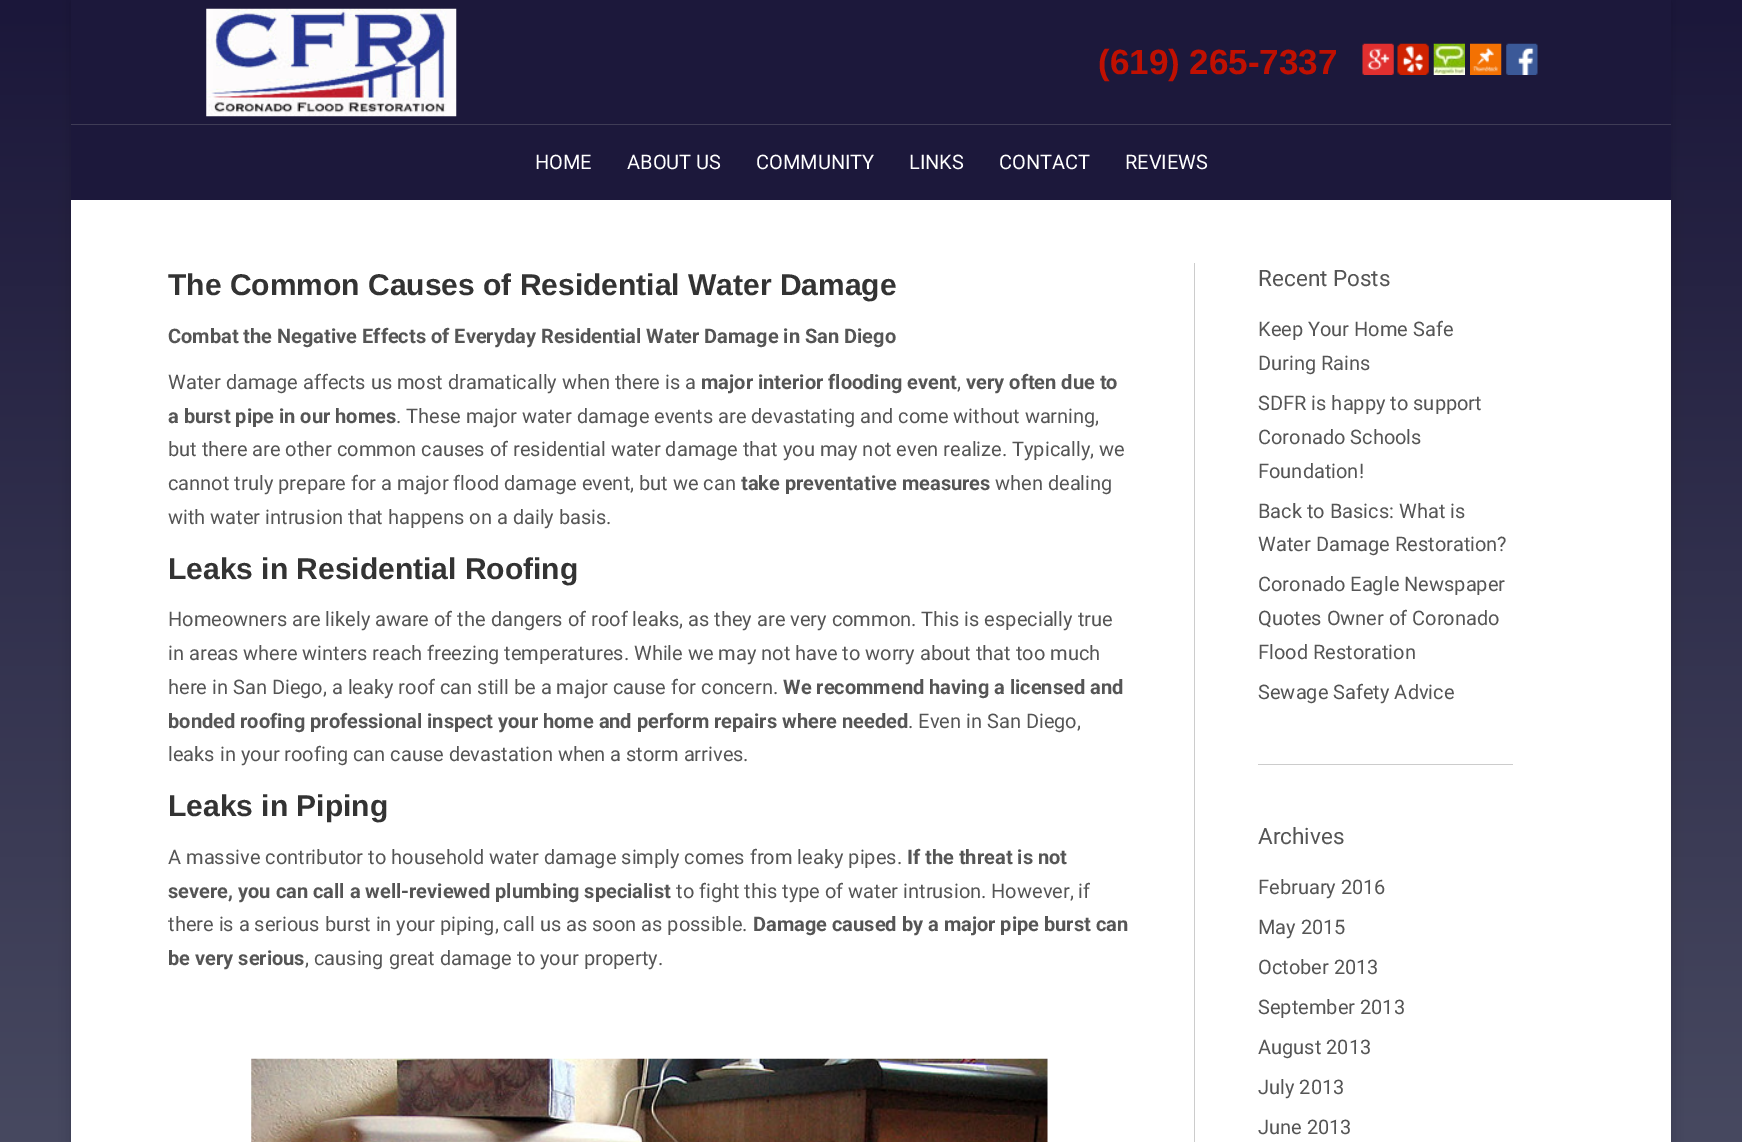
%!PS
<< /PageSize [1742 1142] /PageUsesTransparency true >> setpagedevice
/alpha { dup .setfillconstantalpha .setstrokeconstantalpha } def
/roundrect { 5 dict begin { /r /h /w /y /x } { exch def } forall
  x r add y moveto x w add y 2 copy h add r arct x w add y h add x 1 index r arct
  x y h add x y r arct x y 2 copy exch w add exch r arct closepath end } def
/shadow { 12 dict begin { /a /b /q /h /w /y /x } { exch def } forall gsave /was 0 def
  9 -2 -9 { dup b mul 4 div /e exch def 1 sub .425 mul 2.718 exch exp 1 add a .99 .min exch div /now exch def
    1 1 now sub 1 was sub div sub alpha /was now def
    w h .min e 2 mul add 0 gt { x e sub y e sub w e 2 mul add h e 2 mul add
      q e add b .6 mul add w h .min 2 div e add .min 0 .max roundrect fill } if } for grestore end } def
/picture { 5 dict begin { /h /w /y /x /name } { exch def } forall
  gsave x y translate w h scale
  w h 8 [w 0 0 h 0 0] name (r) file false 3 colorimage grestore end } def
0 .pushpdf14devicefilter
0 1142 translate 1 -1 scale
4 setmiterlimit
1 setgray
0 0 1742 1142 rectfill
gsave newpath 0 0 moveto 1742 0 lineto 1742 1142 lineto 0 1142 lineto closepath clip newpath
<< /ShadingType 2 /ColorSpace /DeviceRGB /Coords [871 0 871 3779] /Extend [true true] /Function << /FunctionType 3 /Domain [0 1] /Functions [<< /FunctionType 2 /Domain [0 1] /C0 [0.106 0.09 0.227] /C1 [0.4 0.42 0.478] /N 1 >> << /FunctionType 2 /Domain [0 1] /C0 [0.4 0.42 0.478] /C1 [0.106 0.09 0.227] /N 1 >>] /Bounds [0.51] /Encode [0 1 0 1] >> >> shfill grestore
0 setgray
71 0 1600 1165 0 7.5 0.15 shadow
1 setgray
71 200 1600 942 rectfill
0.11 0.094 0.231 setrgbcolor
71 0 1600 200 rectfill
(img1.rgb) 206 8 251 109 picture
/LiberationSans-Bold [35 0 0 -35 0 0] selectfont
0.753 0.063 0.004 setrgbcolor
1098 74 moveto (\(619\) 265-7337) show
(img2.rgb) 1362 43 32 32 picture
(img3.rgb) 1397 43 32 32 picture
(img4.rgb) 1433 43 32 32 picture
(img5.rgb) 1470 43 32 32 picture
(img6.rgb) 1506 43 32 32 picture
0.247 0.235 0.337 setrgbcolor
71 124 1600 1 rectfill
/Roboto-Regular [20 0 0 -20 0 0] selectfont
1 setgray
535 169 moveto (HOME) show
627 169 moveto (ABOUT US) show
756 169 moveto (COMMUNITY) show
909 169 moveto (LINKS) show
999 169 moveto (CONTACT) show
1125 169 moveto (REVIEWS) show
/LiberationSans-Bold [30 0 0 -30 0 0] selectfont
0.2 setgray
168 295 moveto (The Common Causes of Residential Water Damage) show
/Roboto-Bold [20 0 0 -20 0 0] selectfont
0.333 setgray
168 343 moveto (Combat the Negative Effects of Everyday Residential Water Damage in San Diego) show
/Roboto-Regular [20 0 0 -20 0 0] selectfont
168 389 moveto (Water damage affects us most dramatically when there is a) show
/Roboto-Bold [20 0 0 -20 0 0] selectfont
701 389 moveto (major interior flooding event) show
/Roboto-Regular [20 0 0 -20 0 0] selectfont
957 389 moveto (,) show
/Roboto-Bold [20 0 0 -20 0 0] selectfont
966 389 moveto (very often due to) show
168 423 moveto (a burst pipe in our homes) show
/Roboto-Regular [20 0 0 -20 0 0] selectfont
396 423 moveto (. These major water damage events are devastating and come without warning,) show
168 456 moveto (but there are other common causes of residential water damage that you may not even realize. Typically, we) show
168 490 moveto (cannot truly prepare for a major flood damage event, but we can) show
/Roboto-Bold [20 0 0 -20 0 0] selectfont
741 490 moveto (take preventative measures) show
/Roboto-Regular [20 0 0 -20 0 0] selectfont
995 490 moveto (when dealing) show
168 524 moveto (with water intrusion that happens on a daily basis.) show
/LiberationSans-Bold [30 0 0 -30 0 0] selectfont
0.2 setgray
168 579 moveto (Leaks in Residential Roofing) show
/Roboto-Regular [20 0 0 -20 0 0] selectfont
0.333 setgray
168 626 moveto (Homeowners are likely aware of the dangers of roof leaks, as they are very common. This is especially true) show
168 660 moveto (in areas where winters reach freezing temperatures. While we may not have to worry about that too much) show
168 694 moveto (here in San Diego, a leaky roof can still be a major cause for concern.) show
/Roboto-Bold [20 0 0 -20 0 0] selectfont
783 694 moveto (We recommend having a licensed and) show
168 728 moveto (bonded roofing professional inspect your home and perform repairs where needed) show
/Roboto-Regular [20 0 0 -20 0 0] selectfont
908 728 moveto (. Even in San Diego,) show
168 761 moveto (leaks in your roofing can cause devastation when a storm arrives.) show
/LiberationSans-Bold [30 0 0 -30 0 0] selectfont
0.2 setgray
168 816 moveto (Leaks in Piping) show
/Roboto-Regular [20 0 0 -20 0 0] selectfont
0.333 setgray
168 864 moveto (A massive contributor to household water damage simply comes from leaky pipes.) show
/Roboto-Bold [20 0 0 -20 0 0] selectfont
907 864 moveto (If the threat is not) show
168 898 moveto (severe, you can call a well-reviewed plumbing specialist) show
/Roboto-Regular [20 0 0 -20 0 0] selectfont
676 898 moveto (to fight this type of water intrusion. However, if) show
168 931 moveto (there is a serious burst in your piping, call us as soon as possible.) show
/Roboto-Bold [20 0 0 -20 0 0] selectfont
753 931 moveto (Damage caused by a major pipe burst can) show
168 965 moveto (be very serious) show
/Roboto-Regular [20 0 0 -20 0 0] selectfont
305 965 moveto (, causing great damage to your property.) show
(img7.rgb) 251 1058 797 84 picture
0.8 setgray
1194 263 1 879 rectfill
/Roboto-Regular [22.5 0 0 -22.5 0 0] selectfont
0.333 setgray
1258 286 moveto (Recent Posts) show
/Roboto-Regular [20 0 0 -20 0 0] selectfont
1258 336 moveto (Keep Your Home Safe) show
1258 370 moveto (During Rains) show
1258 410 moveto (SDFR is happy to support) show
1258 444 moveto (Coronado Schools) show
1258 478 moveto (Foundation!) show
1258 518 moveto (Back to Basics: What is) show
1258 551 moveto (Water Damage Restoration?) show
1258 591 moveto (Coronado Eagle Newspaper) show
1258 625 moveto (Quotes Owner of Coronado) show
1258 659 moveto (Flood Restoration) show
1258 699 moveto (Sewage Safety Advice) show
0.8 setgray
1258 764 255 1 rectfill
/Roboto-Regular [22.5 0 0 -22.5 0 0] selectfont
0.333 setgray
1258 844 moveto (Archives) show
/Roboto-Regular [20 0 0 -20 0 0] selectfont
1258 894 moveto (February 2016) show
1258 934 moveto (May 2015) show
1258 974 moveto (October 2013) show
1258 1014 moveto (September 2013) show
1258 1054 moveto (August 2013) show
1258 1094 moveto (July 2013) show
1258 1134 moveto (June 2013) show
.poppdf14devicefilter showpage
